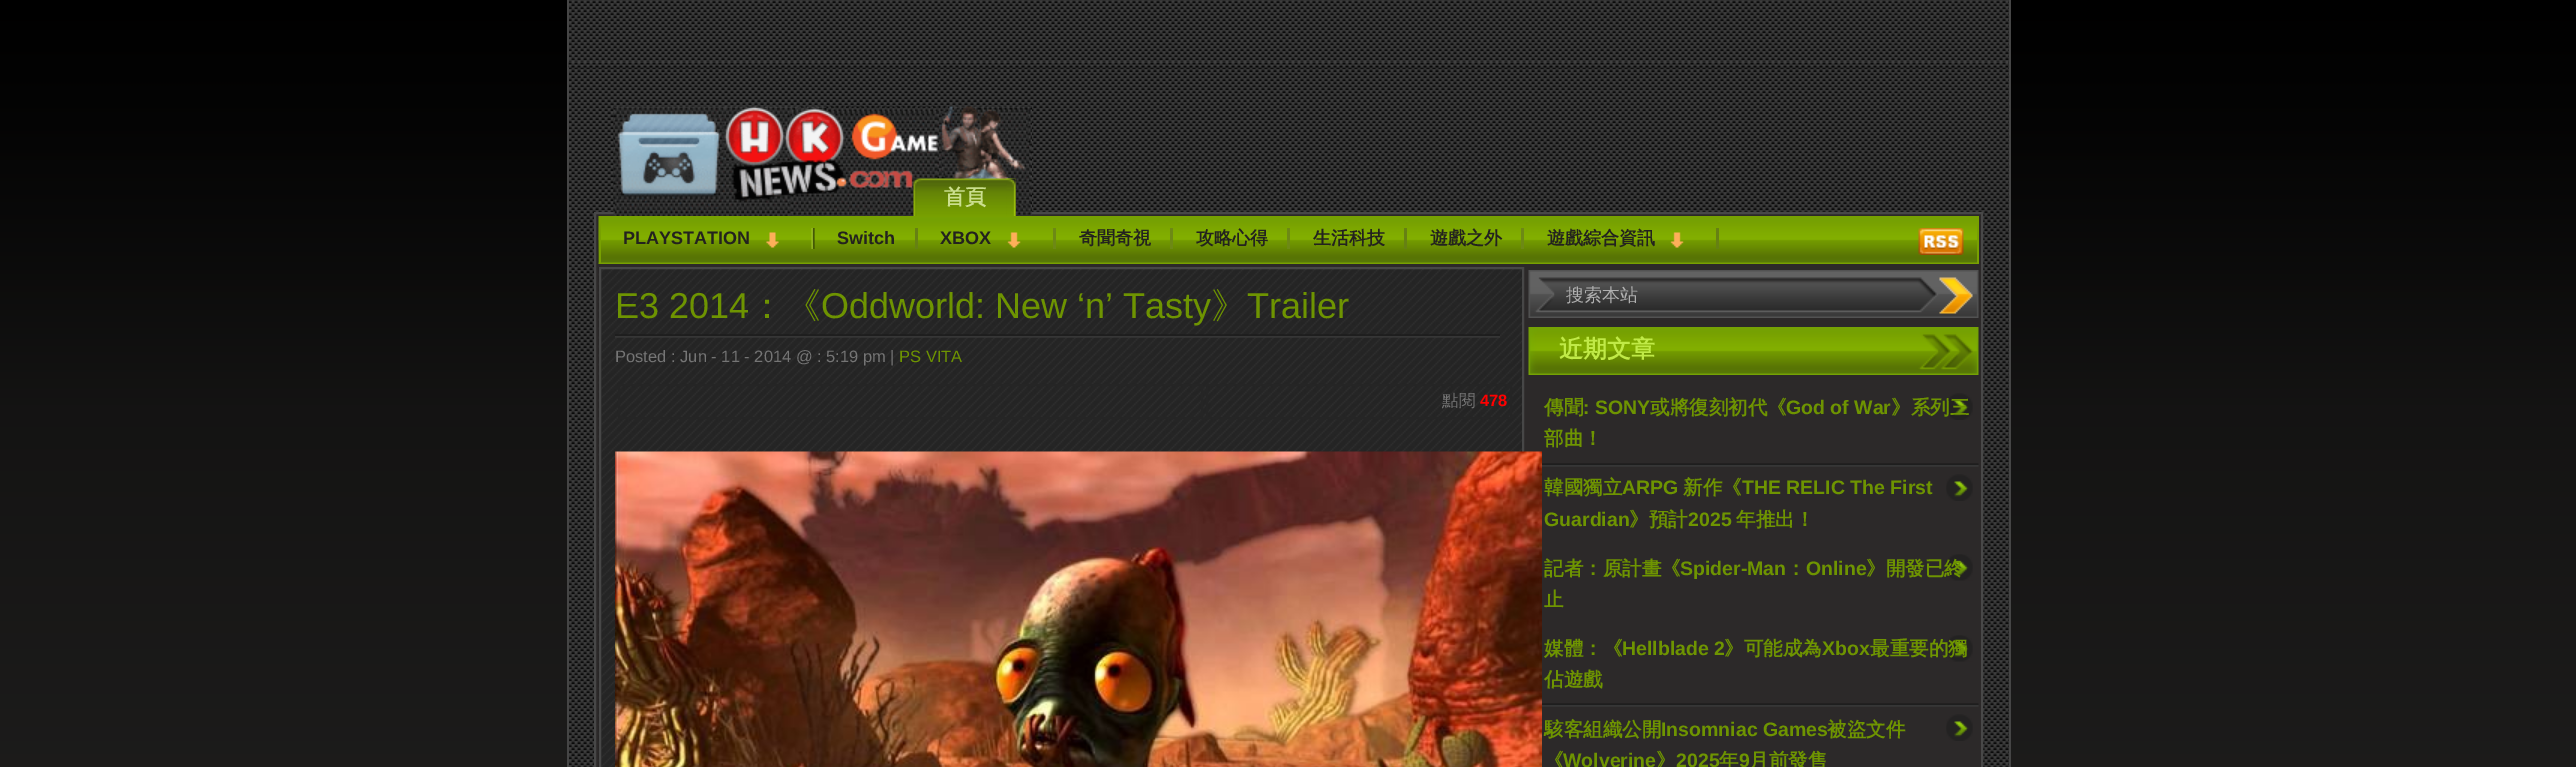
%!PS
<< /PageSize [2576 767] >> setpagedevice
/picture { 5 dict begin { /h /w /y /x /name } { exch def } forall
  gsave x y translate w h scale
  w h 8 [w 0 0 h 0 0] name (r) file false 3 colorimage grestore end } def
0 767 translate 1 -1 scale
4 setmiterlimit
1 setgray
0 0 2576 767 rectfill
(img1.rgb) 0 0 2576 767 picture
(img2.rgb) 569 0 1440 767 picture
0.271 setgray
2009 0 2 767 rectfill
567 0 2 767 rectfill
(img3.rgb) 568 61 1441 7 picture
0.173 0.161 0.161 setrgbcolor
newpath 595 213 moveto 1982 213 lineto 1982 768 lineto 595 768 lineto closepath gsave fill grestore
0.282 setgray
2 setlinewidth
stroke
(img4.rgb) 613 106 419 110 picture
(img5.rgb) 913 178 103 38 picture
(img6.rgb) 1006 178 10 38 picture
/WenQuanYiZenHei-Bold [21 0 0 -21 0 0] selectfont
0.796 0.875 0.561 setrgbcolor
944 204 moveto (首頁) show
(img7.rgb) 598 216 1379 48 picture
0.471 0.627 0.004 setrgbcolor
1977 216 2 48 rectfill
599 216 2 48 rectfill
(img8.rgb) 811 228 4 21 picture
/LiberationSans-Bold [18 0 0 -18 0 0] selectfont
0.137 0.133 0.122 setrgbcolor
623 244 moveto (PLAYSTATION) show
(img9.rgb) 766 232 13 16 picture
0.4 0.506 0.075 setrgbcolor
915 228 3 21 rectfill
0.137 0.133 0.122 setrgbcolor
837 244 moveto (Switch) show
0.427 0.537 0.082 setrgbcolor
1053 228 3 21 rectfill
0.137 0.133 0.122 setrgbcolor
940 244 moveto (XBOX) show
(img10.rgb) 1007 232 14 16 picture
0.427 0.537 0.082 setrgbcolor
1170 228 3 21 rectfill
/WenQuanYiZenHei-Bold [18 0 0 -18 0 0] selectfont
0.137 0.133 0.122 setrgbcolor
1079 244 moveto (奇聞奇視) show
0.427 0.537 0.082 setrgbcolor
1287 228 3 21 rectfill
0.137 0.133 0.122 setrgbcolor
1196 244 moveto (攻略心得) show
0.4 0.506 0.075 setrgbcolor
1404 228 3 21 rectfill
0.137 0.133 0.122 setrgbcolor
1313 244 moveto (生活科技) show
0.427 0.537 0.082 setrgbcolor
1521 228 3 21 rectfill
0.137 0.133 0.122 setrgbcolor
1430 244 moveto (遊戲之外) show
0.4 0.506 0.075 setrgbcolor
1716 228 3 21 rectfill
0.137 0.133 0.122 setrgbcolor
1547 244 moveto (遊戲綜合資訊) show
(img10.rgb) 1670 232 14 16 picture
(img11.rgb) 1918 228 46 27 picture
(img12.rgb) 598 267 924 500 picture
0.278 setgray
600 268 923 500 rectstroke
(img13.rgb) 615 334 885 4 picture
/LiberationSans-Regular [36 0 0 -36 0 0] selectfont
0.431 0.58 0.004 setrgbcolor
615 318 moveto (E3 2014) show
/WenQuanYiZenHei-Medium [36 0 0 -36 0 0] selectfont
749 318 moveto (：《) show
/LiberationSans-Regular [36 0 0 -36 0 0] selectfont
821 318 moveto (Oddworld: New ‘n’ Tasty) show
/WenQuanYiZenHei-Medium [36 0 0 -36 0 0] selectfont
1211 318 moveto (》) show
/LiberationSans-Regular [36 0 0 -36 0 0] selectfont
1247 318 moveto (Trailer) show
/LiberationSans-Regular [16.5 0 0 -16.5 0 0] selectfont
0.459 setgray
615 362 moveto (Posted : Jun - 11 - 2014 @ : 5:19 pm |) show
0.431 0.58 0.004 setrgbcolor
899 362 moveto (PS VITA) show
0.145 setgray
619 385 583 33 rectstroke
1207 385 304 33 rectstroke
/WenQuanYiZenHei-Medium [16.5 0 0 -16.5 0 0] selectfont
0.459 setgray
1442 406 moveto (點閱) show
/LiberationSans-Bold [16.5 0 0 -16.5 0 0] selectfont
1 0 0 setrgbcolor
1480 406 moveto (478) show
(img14.rgb) 615 451 927 316 picture
(img15.rgb) 1528 270 451 48 picture
/WenQuanYiZenHei-Medium [18 0 0 -18 0 0] selectfont
0.69 setgray
1566 301 moveto (搜索本站) show
(img16.rgb) 1939 277 34 37 picture
(img17.rgb) 1528 327 451 48 picture
/WenQuanYiZenHei-Bold [24 0 0 -24 0 0] selectfont
0.753 0.918 0.278 setrgbcolor
1559 357 moveto (近期文章) show
(img18.rgb) 1542 463 437 4 picture
(img19.rgb) 1946 393 27 27 picture
/WenQuanYiZenHei-Bold [19.5 0 0 -19.5 0 0] selectfont
0.431 0.58 0.004 setrgbcolor
1544 414 moveto (傳聞) show
/LiberationSans-Bold [19.5 0 0 -19.5 0 0] selectfont
1583 414 moveto (: SONY) show
/WenQuanYiZenHei-Bold [19.5 0 0 -19.5 0 0] selectfont
1650 414 moveto (或將復刻初代《) show
/LiberationSans-Bold [19.5 0 0 -19.5 0 0] selectfont
1786 414 moveto (God of War) show
/WenQuanYiZenHei-Bold [19.5 0 0 -19.5 0 0] selectfont
1891 414 moveto (》系列三) show
1544 445 moveto (部曲！) show
(img19.rgb) 1946 474 27 27 picture
1544 494 moveto (韓國獨立) show
/LiberationSans-Bold [19.5 0 0 -19.5 0 0] selectfont
1622 494 moveto (ARPG) show
/WenQuanYiZenHei-Bold [19.5 0 0 -19.5 0 0] selectfont
1683 494 moveto (新作《) show
/LiberationSans-Bold [19.5 0 0 -19.5 0 0] selectfont
1742 494 moveto (THE RELIC The First) show
1544 526 moveto (Guardian) show
/WenQuanYiZenHei-Bold [19.5 0 0 -19.5 0 0] selectfont
1629 526 moveto (》預計) show
/LiberationSans-Bold [19.5 0 0 -19.5 0 0] selectfont
1688 526 moveto (2025) show
/WenQuanYiZenHei-Bold [19.5 0 0 -19.5 0 0] selectfont
1736 526 moveto (年推出！) show
(img20.rgb) 1946 554 27 27 picture
1544 575 moveto (記者：原計畫《) show
/LiberationSans-Bold [19.5 0 0 -19.5 0 0] selectfont
1680 575 moveto (Spider-Man) show
/WenQuanYiZenHei-Bold [19.5 0 0 -19.5 0 0] selectfont
1786 575 moveto (：) show
/LiberationSans-Bold [19.5 0 0 -19.5 0 0] selectfont
1806 575 moveto (Online) show
/WenQuanYiZenHei-Bold [19.5 0 0 -19.5 0 0] selectfont
1866 575 moveto (》開發已終) show
1544 606 moveto (止) show
(img18.rgb) 1542 703 437 4 picture
(img20.rgb) 1946 635 27 27 picture
1544 655 moveto (媒體：《) show
/LiberationSans-Bold [19.5 0 0 -19.5 0 0] selectfont
1622 655 moveto (Hellblade 2) show
/WenQuanYiZenHei-Bold [19.5 0 0 -19.5 0 0] selectfont
1724 655 moveto (》可能成為) show
/LiberationSans-Bold [19.5 0 0 -19.5 0 0] selectfont
1822 655 moveto (Xbox) show
/WenQuanYiZenHei-Bold [19.5 0 0 -19.5 0 0] selectfont
1870 655 moveto (最重要的獨) show
1544 686 moveto (佔遊戲) show
(img19.rgb) 1946 714 27 27 picture
1544 736 moveto (駭客組織公開) show
/LiberationSans-Bold [19.5 0 0 -19.5 0 0] selectfont
1661 736 moveto (Insomniac Games) show
/WenQuanYiZenHei-Bold [19.5 0 0 -19.5 0 0] selectfont
1827 736 moveto (被盜文件) show
1544 767 moveto (《) show
/LiberationSans-Bold [19.5 0 0 -19.5 0 0] selectfont
1563 767 moveto (Wolverine) show
/WenQuanYiZenHei-Bold [19.5 0 0 -19.5 0 0] selectfont
1656 767 moveto (》) show
/LiberationSans-Bold [19.5 0 0 -19.5 0 0] selectfont
1676 767 moveto (2025) show
/WenQuanYiZenHei-Bold [19.5 0 0 -19.5 0 0] selectfont
1719 767 moveto (年) show
/LiberationSans-Bold [19.5 0 0 -19.5 0 0] selectfont
1739 767 moveto (9) show
/WenQuanYiZenHei-Bold [19.5 0 0 -19.5 0 0] selectfont
1749 767 moveto (月前發售) show
showpage
